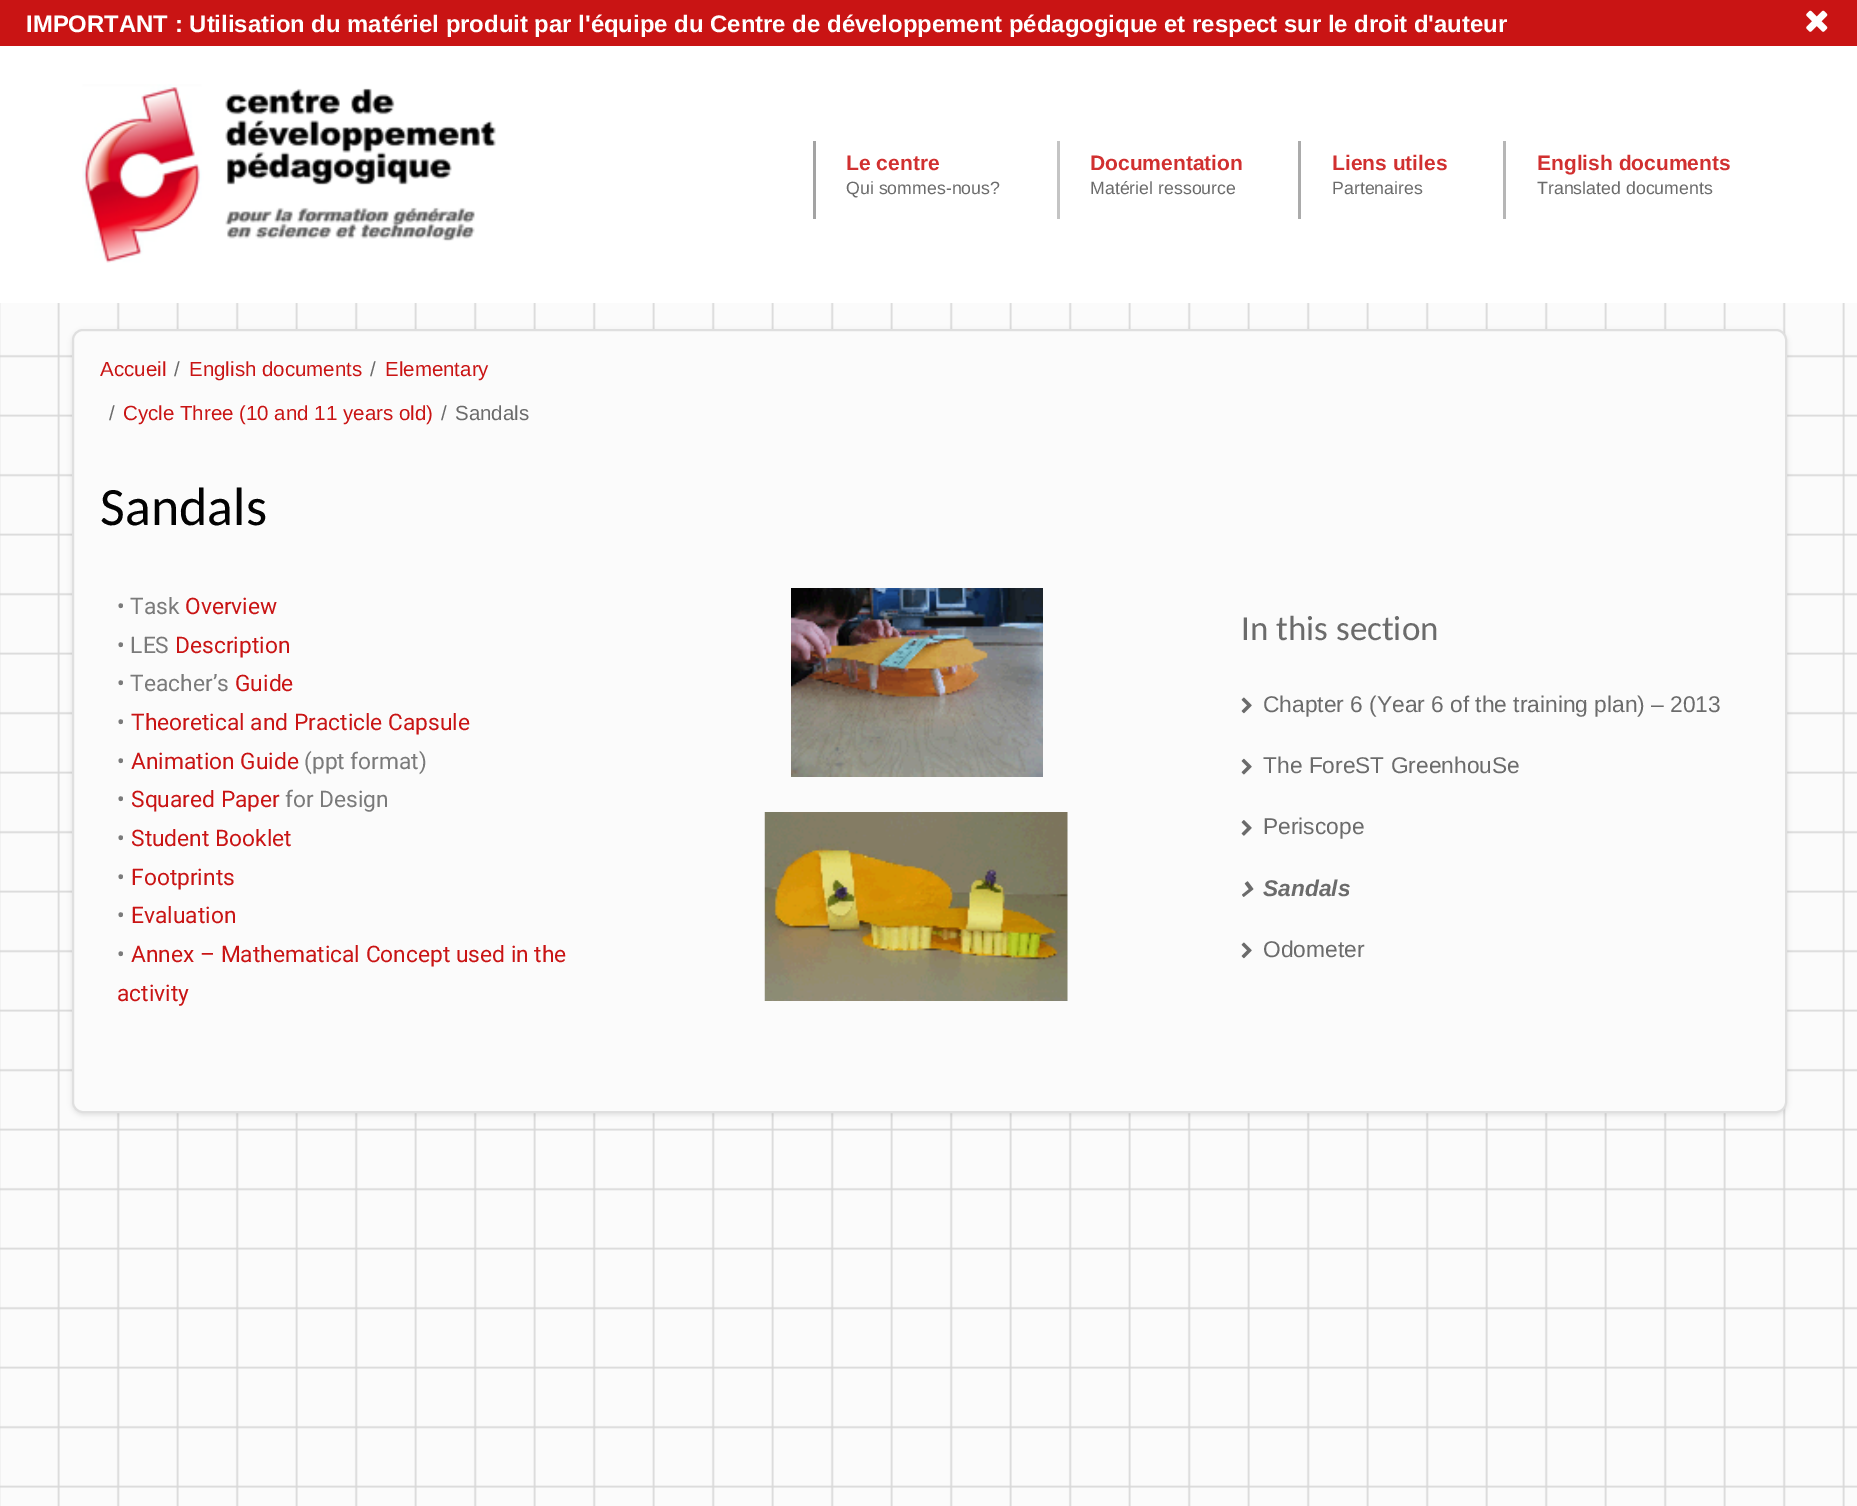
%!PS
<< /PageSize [1857 1506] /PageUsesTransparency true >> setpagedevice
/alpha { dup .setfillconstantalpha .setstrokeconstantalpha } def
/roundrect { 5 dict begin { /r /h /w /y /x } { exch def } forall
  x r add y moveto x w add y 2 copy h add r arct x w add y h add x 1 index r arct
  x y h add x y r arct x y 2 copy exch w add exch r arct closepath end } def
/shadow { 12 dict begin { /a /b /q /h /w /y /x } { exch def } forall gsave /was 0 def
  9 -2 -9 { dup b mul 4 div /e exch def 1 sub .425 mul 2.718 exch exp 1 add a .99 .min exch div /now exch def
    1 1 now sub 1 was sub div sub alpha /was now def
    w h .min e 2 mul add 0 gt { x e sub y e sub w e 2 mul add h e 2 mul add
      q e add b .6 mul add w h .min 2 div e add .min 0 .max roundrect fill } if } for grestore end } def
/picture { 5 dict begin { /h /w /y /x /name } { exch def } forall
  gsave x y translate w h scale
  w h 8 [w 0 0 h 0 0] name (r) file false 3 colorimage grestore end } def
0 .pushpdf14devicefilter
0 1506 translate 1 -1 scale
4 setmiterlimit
0.984 setgray
0 0 1857 1506 rectfill
0.788 0.078 0.078 setrgbcolor
0 0 1857 46 rectfill
/LiberationSans-Bold [23.9 0 0 -23.9 0 0] selectfont
1 setgray
26 32 moveto (IMPORTANT : Utilisation du matériel produit par l'équipe du Centre de développement pédagogique et respect sur le droit d'auteur) show
(img1.rgb) 1806 10 22 22 picture
0 46 1857 257 rectfill
(img2.rgb) 82 84 414 179 picture
0.639 setgray
813 141 3 78 rectfill
/LiberationSans-Bold [21 0 0 -21 0 0] selectfont
0.82 0.188 0.188 setrgbcolor
846 170 moveto (Le centre) show
/LiberationSans-Regular [17.75 0 0 -17.75 0 0] selectfont
0.42 setgray
846 194 moveto (Qui sommes-nous?) show
0.769 setgray
1057 141 3 78 rectfill
/LiberationSans-Bold [21 0 0 -21 0 0] selectfont
0.82 0.188 0.188 setrgbcolor
1090 170 moveto (Documentation) show
/LiberationSans-Regular [17.75 0 0 -17.75 0 0] selectfont
0.42 setgray
1090 194 moveto (Matériel ressource) show
0.671 setgray
1298 141 3 78 rectfill
/LiberationSans-Bold [21 0 0 -21 0 0] selectfont
0.82 0.188 0.188 setrgbcolor
1332 170 moveto (Liens utiles) show
/LiberationSans-Regular [17.75 0 0 -17.75 0 0] selectfont
0.42 setgray
1332 194 moveto (Partenaires) show
0.714 setgray
1503 141 3 78 rectfill
/LiberationSans-Bold [21 0 0 -21 0 0] selectfont
0.82 0.188 0.188 setrgbcolor
1537 170 moveto (English documents) show
/LiberationSans-Regular [17.75 0 0 -17.75 0 0] selectfont
0.42 setgray
1537 194 moveto (Translated documents) show
(img3.rgb) 0 303 1857 1203 picture
0 setgray
72 331 1715 784 11 2.5 0.1 shadow
0.984 setgray
73 330 1713 782 10 roundrect gsave fill grestore
0.875 setgray
2 setlinewidth
stroke
/LiberationSans-Regular [20.5 0 0 -20.5 0 0] selectfont
0.788 0.078 0.078 setrgbcolor
100 376 moveto (Accueil) show
0.42 setgray
174 376 moveto (/) show
0.788 0.078 0.078 setrgbcolor
189 376 moveto (English documents) show
0.42 setgray
370 376 moveto (/) show
0.788 0.078 0.078 setrgbcolor
385 376 moveto (Elementary) show
0.42 setgray
109 420 moveto (/) show
0.788 0.078 0.078 setrgbcolor
123 420 moveto (Cycle Three \(10 and 11 years old\)) show
0.42 setgray
441 420 moveto (/) show
455 420 moveto (Sandals) show
/Carlito-Regular [54 0 0 -54 0 0] selectfont
0.008 setgray
100 525 moveto (Sandals) show
/Roboto-Regular [22.75 0 0 -22.75 0 0] selectfont
0.478 setgray
117 614 moveto (• Task) show
0.788 0.078 0.078 setrgbcolor
185 614 moveto (Overview) show
0.478 setgray
117 653 moveto (• LES) show
0.788 0.078 0.078 setrgbcolor
175 653 moveto (Description) show
0.478 setgray
117 691 moveto (• Teacher’s) show
0.788 0.078 0.078 setrgbcolor
235 691 moveto (Guide) show
0.478 setgray
117 730 moveto (•) show
0.788 0.078 0.078 setrgbcolor
131 730 moveto (Theoretical and Practicle Capsule) show
0.478 setgray
117 769 moveto (•) show
0.788 0.078 0.078 setrgbcolor
131 769 moveto (Animation Guide) show
0.478 setgray
304 769 moveto (\(ppt format\)) show
117 807 moveto (•) show
0.788 0.078 0.078 setrgbcolor
131 807 moveto (Squared Paper) show
0.478 setgray
285 807 moveto (for Design) show
117 846 moveto (•) show
0.788 0.078 0.078 setrgbcolor
131 846 moveto (Student Booklet) show
0.478 setgray
117 885 moveto (•) show
0.788 0.078 0.078 setrgbcolor
131 885 moveto (Footprints) show
0.478 setgray
117 923 moveto (•) show
0.788 0.078 0.078 setrgbcolor
131 923 moveto (Evaluation) show
0.478 setgray
117 962 moveto (•) show
0.788 0.078 0.078 setrgbcolor
131 962 moveto (Annex – Mathematical Concept used in the) show
117 1001 moveto (activity) show
(img4.rgb) 791 588 252 189 picture
(img5.rgb) 764 812 304 189 picture
/Carlito-Regular [35 0 0 -35 0 0] selectfont
0.42 setgray
1241 640 moveto (In this section) show
(img6.rgb) 1241 697 11 17 picture
/LiberationSans-Regular [22.75 0 0 -22.75 0 0] selectfont
1263 712 moveto (Chapter 6 \(Year 6 of the training plan\) – 2013) show
(img7.rgb) 1241 758 11 17 picture
1263 773 moveto (The ForeST GreenhouSe) show
(img8.rgb) 1241 820 11 16 picture
1263 834 moveto (Periscope) show
(img9.rgb) 1242 881 12 16 picture
/LiberationSans-BoldItalic [22.75 0 0 -22.75 0 0] selectfont
1263 896 moveto (Sandals) show
(img10.rgb) 1241 942 11 17 picture
/LiberationSans-Regular [22.75 0 0 -22.75 0 0] selectfont
1263 957 moveto (Odometer) show
.poppdf14devicefilter showpage
